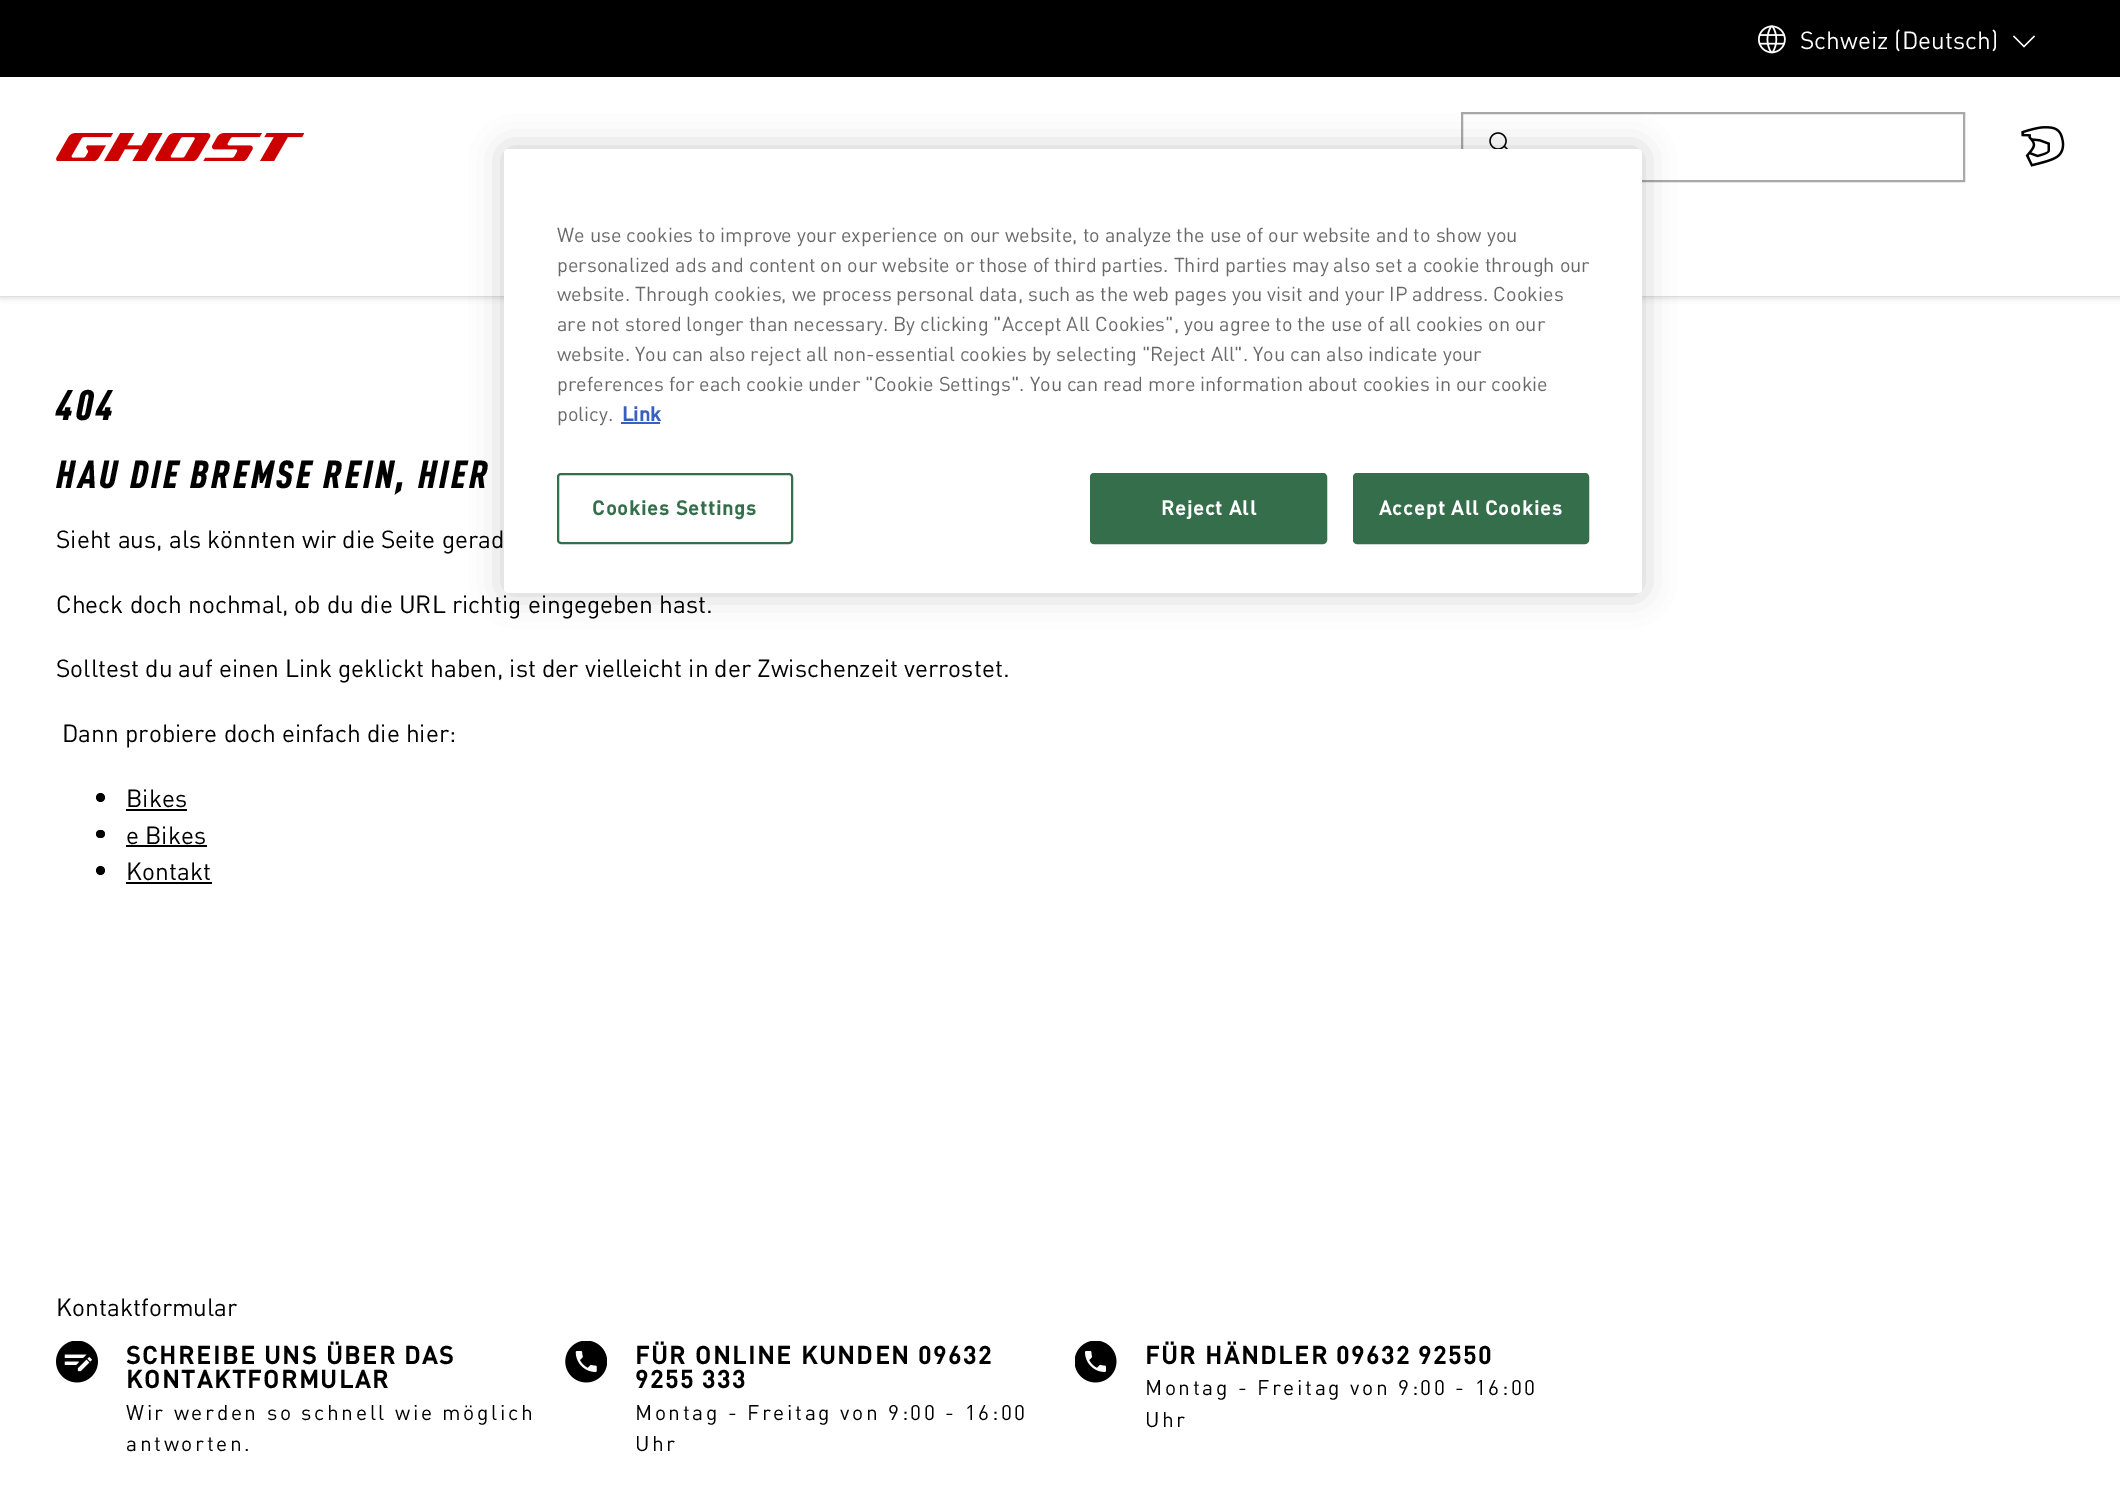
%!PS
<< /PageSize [2120 1488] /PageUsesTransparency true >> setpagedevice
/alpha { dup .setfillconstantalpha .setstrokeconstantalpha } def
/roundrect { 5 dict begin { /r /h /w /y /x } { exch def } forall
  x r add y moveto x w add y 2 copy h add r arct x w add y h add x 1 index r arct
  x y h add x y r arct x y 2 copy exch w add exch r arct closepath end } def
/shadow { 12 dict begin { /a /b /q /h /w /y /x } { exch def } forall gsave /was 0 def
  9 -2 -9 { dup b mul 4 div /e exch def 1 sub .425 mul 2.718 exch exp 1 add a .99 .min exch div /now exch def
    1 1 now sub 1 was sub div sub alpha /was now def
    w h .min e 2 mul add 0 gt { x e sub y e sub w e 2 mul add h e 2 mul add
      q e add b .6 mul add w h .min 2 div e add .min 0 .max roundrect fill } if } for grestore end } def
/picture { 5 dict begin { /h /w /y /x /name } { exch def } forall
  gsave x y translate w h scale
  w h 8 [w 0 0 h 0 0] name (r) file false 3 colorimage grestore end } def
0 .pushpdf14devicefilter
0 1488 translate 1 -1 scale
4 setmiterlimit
1 setgray
0 0 2120 1488 rectfill
0 setgray
0 0 2120 77 rectfill
(img1.rgb) 1758 25 28 29 picture
/DIN-Regular [24.5 0 0 -24.5 0 0] selectfont
1 setgray
1800 49 moveto (Schweiz \(Deutsch\)) show
newpath 2024 45.5 moveto 2014 35.5 lineto 2013 36.5 lineto 2024 47.5 lineto 2035 36.5 lineto 2034 35.5 lineto closepath eofill
0 setgray
0 77 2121 219 0 3.5 0.25 shadow
1 setgray
0 77 2120 219 rectfill
(img2.rgb) 56 133 248 28 picture
0.659 setgray
2 setlinewidth
1462 113 502 68 rectstroke
(img3.rgb) 1489 132 20 17 picture
(img4.rgb) 2021 126 44 41 picture
/DIN-Black [42 0 0 -42 0 0] selectfont
0 setgray
56 420 moveto 3 0 (404) ashow
/DIN-Black [38.5 0 0 -38.5 0 0] selectfont
56 488 moveto 2.9 0 (HAU DIE BREMSE REIN, HIER) ashow
/DIN-Regular [24.5 0 0 -24.5 0 0] selectfont
56 548 moveto (Sieht aus, als könnten wir die Seite gerad) show
56 613 moveto (Check doch nochmal, ob du die URL richtig eingegeben hast.) show
56 677 moveto (Solltest du auf einen Link geklickt haben, ist der vielleicht in der Zwischenzeit verrostet.) show
62 742 moveto (Dann probiere doch einfach die hier:) show
newpath 100.5 797.5 4.5 0 360 arc closepath fill
126 807 moveto (Bikes) show
126 809 61 2 rectfill
96 830 9 8 4 roundrect fill
126 844 moveto (e Bikes) show
126 845 81 2 rectfill
newpath 100.5 870.5 4.5 0 360 arc closepath fill
126 880 moveto (Kontakt) show
126 882 86 2 rectfill
56 1316 moveto (Kontaktformular) show
(img5.rgb) 56 1341 42 42 picture
/DIN-Bold [24.5 0 0 -24.5 0 0] selectfont
126 1364 moveto 1.8 0 (SCHREIBE UNS ÜBER DAS) ashow
126 1388 moveto 1.8 0 (KONTAKTFORMULAR) ashow
/DIN-Regular [21 0 0 -21 0 0] selectfont
126 1420 moveto 2.6 0 (Wir werden so schnell wie möglich) ashow
126 1451 moveto 2.6 0 (antworten.) ashow
(img6.rgb) 565 1341 42 42 picture
/DIN-Bold [24.5 0 0 -24.5 0 0] selectfont
635 1364 moveto 1.8 0 (FÜR ONLINE KUNDEN 09632) ashow
635 1388 moveto 1.8 0 (9255 333) ashow
/DIN-Regular [21 0 0 -21 0 0] selectfont
635 1420 moveto 2.6 0 (Montag - Freitag von 9:00 - 16:00) ashow
635 1451 moveto 2.6 0 (Uhr) ashow
(img7.rgb) 1075 1341 42 42 picture
/DIN-Bold [24.5 0 0 -24.5 0 0] selectfont
1145 1364 moveto 1.8 0 (FÜR HÄNDLER 09632 92550) ashow
/DIN-Regular [21 0 0 -21 0 0] selectfont
1145 1395 moveto 2.6 0 (Montag - Freitag von 9:00 - 16:00) ashow
1145 1427 moveto 2.6 0 (Uhr) ashow
504 149 1138 444 4 16 0.2 shadow
1 setgray
504 149 1138 444 4 roundrect fill
/DIN-Regular [19.92 0 0 -19.92 0 0] selectfont
0.412 setgray
557 242 moveto (We use cookies to improve your experience on our website, to analyze the use of our website and to show you) show
557 272 moveto (personalized ads and content on our website or those of third parties. Third parties may also set a cookie through our) show
557 301 moveto (website. Through cookies, we process personal data, such as the web pages you visit and your IP address. Cookies) show
557 331 moveto (are not stored longer than necessary. By clicking "Accept All Cookies", you agree to the use of all cookies on our) show
557 361 moveto (website. You can also reject all non-essential cookies by selecting "Reject All". You can also indicate your) show
557 391 moveto (preferences for each cookie under "Cookie Settings". You can read more information about cookies in our cookie) show
557 421 moveto (policy.) show
/DIN-Bold [19.92 0 0 -19.92 0 0] selectfont
0.22 0.376 0.745 setrgbcolor
622 421 moveto (Link) show
621 422 39 2 rectfill
0.204 0.431 0.29 setrgbcolor
558 474 234 69 3 roundrect stroke
592 515 moveto 1 0 (Cookies Settings) ashow
1091 474 235 69 3 roundrect gsave fill grestore
stroke
1 setgray
1161 515 moveto 1 0 (Reject All) ashow
0.204 0.431 0.29 setrgbcolor
1354 474 234 69 3 roundrect gsave fill grestore
stroke
1 setgray
1379 515 moveto 1 0 (Accept All Cookies) ashow
.poppdf14devicefilter showpage
